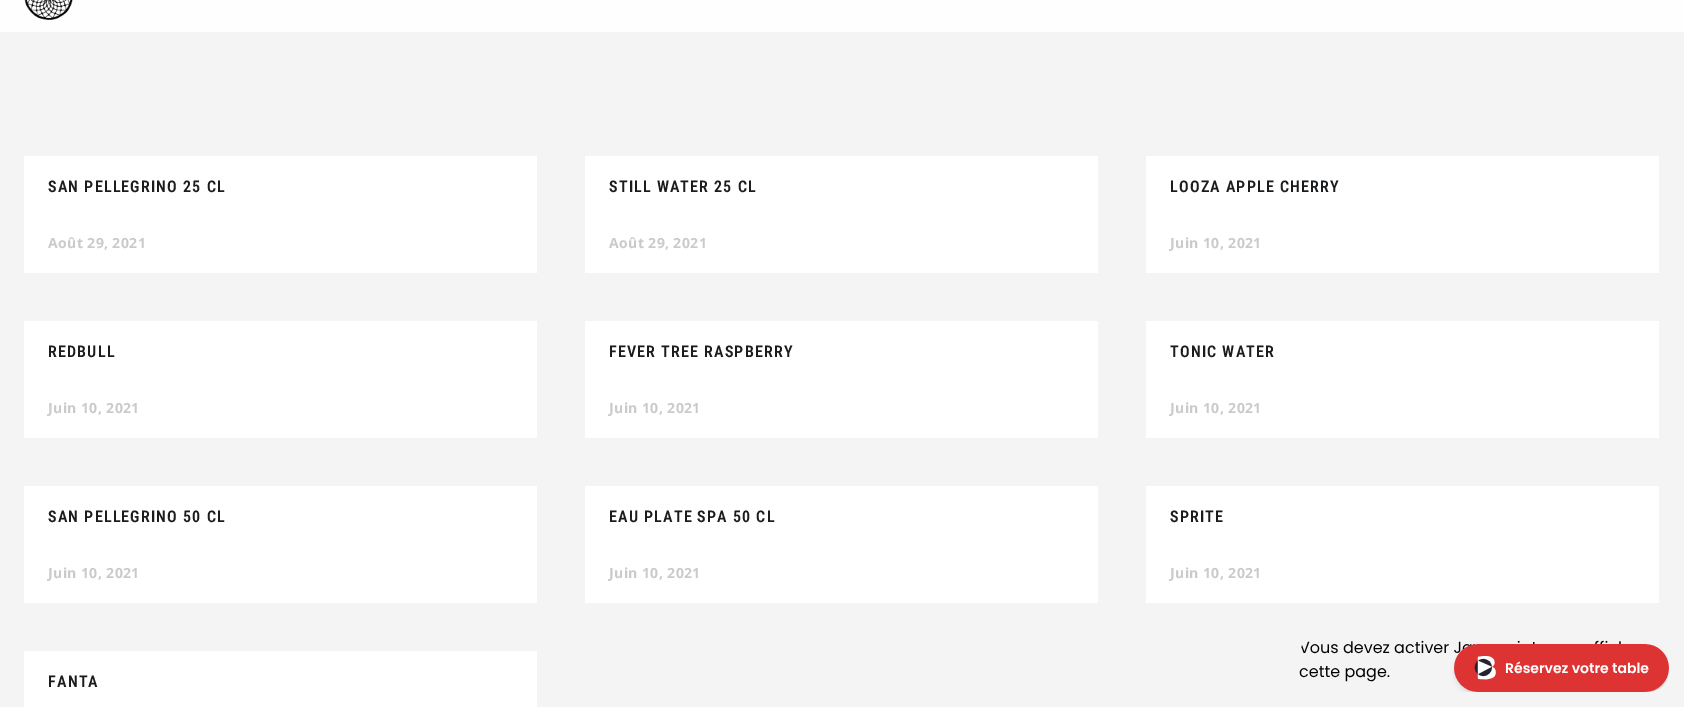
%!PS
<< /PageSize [1684 707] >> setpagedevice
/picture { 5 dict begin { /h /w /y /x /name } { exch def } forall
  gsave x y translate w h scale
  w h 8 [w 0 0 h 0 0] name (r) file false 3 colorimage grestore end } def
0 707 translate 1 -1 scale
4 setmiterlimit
0.957 setgray
0 0 1684 707 rectfill
0.996 setgray
0 0 1684 32 rectfill
(img1.rgb) 24 0 49 20 picture
1 setgray
24 156 513 117 rectfill
/RobotoCondensed-SemiBold [16 0 0 -16 0 0] selectfont
0.102 0.11 0.118 setrgbcolor
48 192 moveto 1.2 0 (SAN PELLEGRINO 25 CL) ashow
/OpenSans-Bold [14 0 0 -14 0 0] selectfont
0.792 0.792 0.8 setrgbcolor
48 248 moveto 0.4 0 (Août 29, 2021) ashow
1 setgray
585 156 513 117 rectfill
/RobotoCondensed-SemiBold [16 0 0 -16 0 0] selectfont
0.102 0.11 0.118 setrgbcolor
609 192 moveto 1.2 0 (STILL WATER 25 CL) ashow
/OpenSans-Bold [14 0 0 -14 0 0] selectfont
0.792 0.792 0.8 setrgbcolor
609 248 moveto 0.4 0 (Août 29, 2021) ashow
1 setgray
1146 156 513 117 rectfill
/RobotoCondensed-SemiBold [16 0 0 -16 0 0] selectfont
0.102 0.11 0.118 setrgbcolor
1170 192 moveto 1.2 0 (LOOZA APPLE CHERRY) ashow
/OpenSans-Bold [14 0 0 -14 0 0] selectfont
0.792 0.792 0.8 setrgbcolor
1170 248 moveto 0.4 0 (Juin 10, 2021) ashow
1 setgray
24 321 513 117 rectfill
/RobotoCondensed-SemiBold [16 0 0 -16 0 0] selectfont
0.102 0.11 0.118 setrgbcolor
48 357 moveto 1.2 0 (REDBULL) ashow
/OpenSans-Bold [14 0 0 -14 0 0] selectfont
0.792 0.792 0.8 setrgbcolor
48 413 moveto 0.4 0 (Juin 10, 2021) ashow
1 setgray
585 321 513 117 rectfill
/RobotoCondensed-SemiBold [16 0 0 -16 0 0] selectfont
0.102 0.11 0.118 setrgbcolor
609 357 moveto 1.2 0 (FEVER TREE RASPBERRY) ashow
/OpenSans-Bold [14 0 0 -14 0 0] selectfont
0.792 0.792 0.8 setrgbcolor
609 413 moveto 0.4 0 (Juin 10, 2021) ashow
1 setgray
1146 321 513 117 rectfill
/RobotoCondensed-SemiBold [16 0 0 -16 0 0] selectfont
0.102 0.11 0.118 setrgbcolor
1170 357 moveto 1.2 0 (TONIC WATER) ashow
/OpenSans-Bold [14 0 0 -14 0 0] selectfont
0.792 0.792 0.8 setrgbcolor
1170 413 moveto 0.4 0 (Juin 10, 2021) ashow
1 setgray
24 486 513 117 rectfill
/RobotoCondensed-SemiBold [16 0 0 -16 0 0] selectfont
0.102 0.11 0.118 setrgbcolor
48 522 moveto 1.2 0 (SAN PELLEGRINO 50 CL) ashow
/OpenSans-Bold [14 0 0 -14 0 0] selectfont
0.792 0.792 0.8 setrgbcolor
48 578 moveto 0.4 0 (Juin 10, 2021) ashow
1 setgray
585 486 513 117 rectfill
/RobotoCondensed-SemiBold [16 0 0 -16 0 0] selectfont
0.102 0.11 0.118 setrgbcolor
609 522 moveto 1.2 0 (EAU PLATE SPA 50 CL) ashow
/OpenSans-Bold [14 0 0 -14 0 0] selectfont
0.792 0.792 0.8 setrgbcolor
609 578 moveto 0.4 0 (Juin 10, 2021) ashow
1 setgray
1146 486 513 117 rectfill
/RobotoCondensed-SemiBold [16 0 0 -16 0 0] selectfont
0.102 0.11 0.118 setrgbcolor
1170 522 moveto 1.2 0 (SPRITE) ashow
/OpenSans-Bold [14 0 0 -14 0 0] selectfont
0.792 0.792 0.8 setrgbcolor
1170 578 moveto 0.4 0 (Juin 10, 2021) ashow
1 setgray
24 651 513 56 rectfill
/RobotoCondensed-SemiBold [16 0 0 -16 0 0] selectfont
0.102 0.11 0.118 setrgbcolor
48 687 moveto 1.2 0 (FANTA) ashow
(img2.rgb) 1299 640 370 52 picture
showpage
